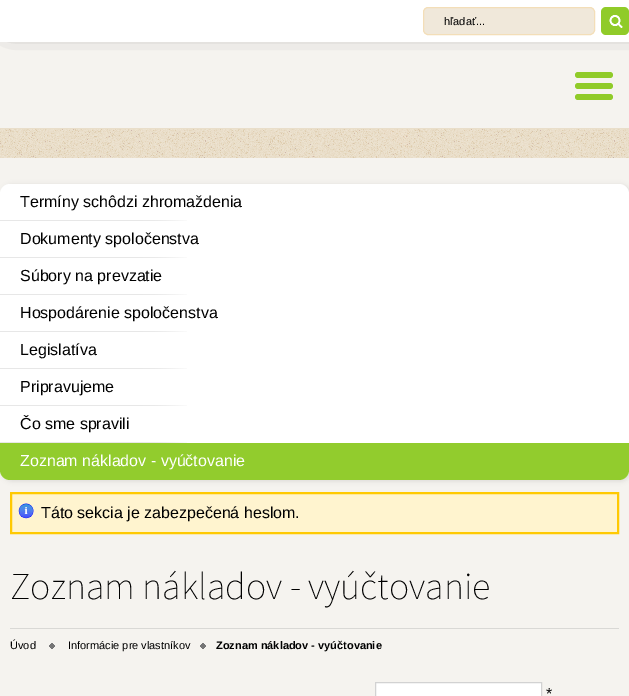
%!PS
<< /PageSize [629 696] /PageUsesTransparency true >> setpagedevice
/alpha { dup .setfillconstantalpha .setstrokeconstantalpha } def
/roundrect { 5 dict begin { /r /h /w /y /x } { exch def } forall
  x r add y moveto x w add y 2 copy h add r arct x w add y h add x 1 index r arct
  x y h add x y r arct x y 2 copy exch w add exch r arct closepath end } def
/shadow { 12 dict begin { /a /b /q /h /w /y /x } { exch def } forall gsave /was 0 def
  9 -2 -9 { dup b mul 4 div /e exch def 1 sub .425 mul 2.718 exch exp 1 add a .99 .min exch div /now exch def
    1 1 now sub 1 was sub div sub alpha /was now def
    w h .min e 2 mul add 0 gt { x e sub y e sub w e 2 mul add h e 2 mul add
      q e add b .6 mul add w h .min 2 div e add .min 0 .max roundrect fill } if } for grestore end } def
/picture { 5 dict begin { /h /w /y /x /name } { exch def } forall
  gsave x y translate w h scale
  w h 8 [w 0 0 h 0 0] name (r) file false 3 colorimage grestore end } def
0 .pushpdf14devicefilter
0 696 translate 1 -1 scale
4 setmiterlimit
0.961 0.953 0.937 setrgbcolor
0 0 629 696 rectfill
0 setgray
10 -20 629 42 0 12.5 1 shadow
1 setgray
0 0 629 42 rectfill
0.941 0.91 0.855 setrgbcolor
423.5 7.5 171 27 4.5 roundrect gsave fill grestore
0.953 0.871 0.722 setrgbcolor
stroke
/LiberationSans-Regular [11 0 0 -11 0 0] selectfont
0 setgray
444 25 moveto (hľadať...) show
0.565 0.796 0.161 setrgbcolor
601 7 28 28 5 roundrect fill
(img1.rgb) 609 15 14 14 picture
575 72 38 6 3 roundrect fill
575 83 38 6 3 roundrect fill
575 94 38 6 3 roundrect fill
0.914 0.871 0.792 setrgbcolor
0 128 629 1 rectfill
(img2.rgb) 0 129 629 29 picture
0.004 0.008 0.008 setrgbcolor
2 185 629 296 10 2.5 0.1 shadow
1 setgray
0 184 629 296 10 roundrect fill
(img3.rgb) 0 220 187 1 picture
/LiberationSans-Regular [16 0 0 -16 0 0] selectfont
0 setgray
20 207 moveto (Termíny schôdzi zhromaždenia) show
(img3.rgb) 0 257 187 1 picture
20 244 moveto (Dokumenty spoločenstva) show
(img3.rgb) 0 294 187 1 picture
20 281 moveto (Súbory na prevzatie) show
(img3.rgb) 0 331 187 1 picture
20 318 moveto (Hospodárenie spoločenstva) show
(img3.rgb) 0 368 187 1 picture
20 355 moveto (Legislatíva) show
(img3.rgb) 0 405 187 1 picture
20 392 moveto (Pripravujeme) show
(img3.rgb) 0 442 187 1 picture
20 429 moveto (Čo sme spravili) show
0.98 alpha
0.565 0.796 0.161 setrgbcolor
newpath 0 443 moveto 629 443 lineto 629 470 lineto 629 475.5 624.5 480 619 480 curveto 10 480 lineto 4.5 480 0 475.5 0 470 curveto closepath fill
1 alpha
1 setgray
20 466 moveto (Zoznam nákladov - vyúčtovanie) show
1 0.957 0.812 setrgbcolor
12 494 605 38 rectfill
(img4.rgb) 18 503 16 16 picture
1 0.788 0.008 setrgbcolor
2 setlinewidth
11 493 607 40 rectstroke
0 setgray
41 518 moveto (Táto sekcia je zabezpečená heslom.) show
0.851 0.847 0.835 setrgbcolor
10 628 609 1 rectfill
/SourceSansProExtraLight-ExtraLight [38 0 0 -38 0 0] selectfont
0 setgray
10 599 moveto (Zoznam nákladov - vyúčtovanie) show
/LiberationSans-Regular [11 0 0 -11 0 0] selectfont
10 649 moveto (Úvod) show
(img5.rgb) 49 643 6 6 picture
68 649 moveto (Informácie pre vlastníkov) show
(img5.rgb) 200 643 6 6 picture
/LiberationSans-Bold [11 0 0 -11 0 0] selectfont
216 649 moveto (Zoznam nákladov - vyúčtovanie) show
1 setgray
newpath 375.5 682.5 moveto 541.5 682.5 lineto 541.5 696.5 lineto 375.5 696.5 lineto closepath gsave fill grestore
0.824 setgray
1 setlinewidth
stroke
/LiberationSans-Regular [16 0 0 -16 0 0] selectfont
0 setgray
546 699 moveto (*) show
.poppdf14devicefilter showpage
